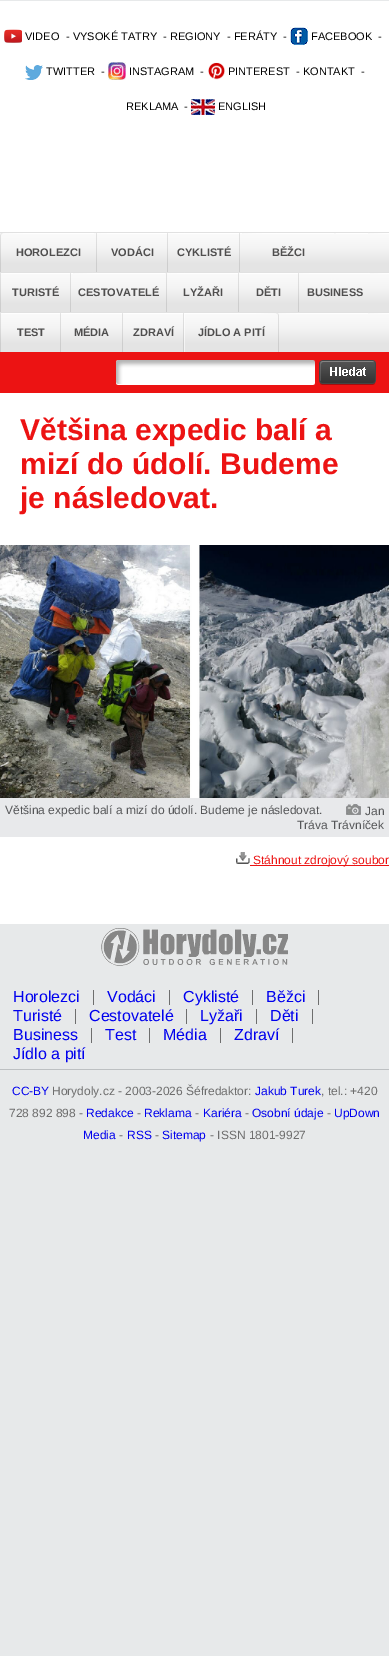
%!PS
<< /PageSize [389 1656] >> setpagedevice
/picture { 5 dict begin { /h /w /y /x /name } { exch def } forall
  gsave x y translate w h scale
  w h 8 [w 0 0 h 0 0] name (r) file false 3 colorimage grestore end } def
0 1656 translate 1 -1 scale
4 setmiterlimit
0.906 0.914 0.918 setrgbcolor
0 0 389 1656 rectfill
1 setgray
0 1 389 923 rectfill
(img1.rgb) 4 29 18 14 picture
/LiberationSans-Regular [11 0 0 -11 0 0] selectfont
0 setgray
25 40 moveto (VIDEO) show
66 40 moveto (- VYSOKÉ TATRY) show
163 40 moveto (- REGIONY) show
227 40 moveto (- FERÁTY) show
283 40 moveto (-) show
(img2.rgb) 290 27 18 18 picture
311 40 moveto (FACEBOOK) show
378 40 moveto (-) show
(img3.rgb) 25 65 18 15 picture
46 75 moveto (TWITTER) show
101 75 moveto (-) show
(img4.rgb) 108 62 18 18 picture
129 75 moveto (INSTAGRAM) show
200 75 moveto (-) show
(img5.rgb) 208 62 17 18 picture
228 75 moveto (PINTEREST) show
296 75 moveto (- KONTAKT) show
361 75 moveto (-) show
126 110 moveto (REKLAMA) show
184 110 moveto (-) show
(img6.rgb) 191 99 24 16 picture
218 110 moveto (ENGLISH) show
(img7.rgb) 0 232 389 120 picture
(img8.rgb) 0 233 94 39 picture
/LiberationSans-Bold [11 0 0 -11 0 0] selectfont
0.314 0.31 0.31 setrgbcolor
16 256 moveto (HOROLEZCI) show
(img9.rgb) 96 233 1 39 picture
(img10.rgb) 97 233 70 39 picture
111 256 moveto (VODÁCI) show
(img9.rgb) 167 233 1 39 picture
(img11.rgb) 168 233 71 39 picture
177 256 moveto (CYKLISTÉ) show
(img9.rgb) 239 233 1 39 picture
(img12.rgb) 240 233 96 39 picture
272 256 moveto (BĚŽCI) show
(img9.rgb) 0 273 1 39 picture
(img13.rgb) 1 273 69 39 picture
12 296 moveto (TURISTÉ) show
(img9.rgb) 70 273 1 39 picture
(img14.rgb) 71 273 95 39 picture
78 296 moveto (CESTOVATELÉ) show
(img9.rgb) 166 273 1 39 picture
(img11.rgb) 167 273 71 39 picture
183 296 moveto (LYŽAŘI) show
(img9.rgb) 238 273 1 39 picture
(img15.rgb) 239 273 59 39 picture
256 296 moveto (DĚTI) show
(img9.rgb) 298 273 1 39 picture
(img11.rgb) 299 273 71 39 picture
307 296 moveto (BUSINESS) show
(img9.rgb) 0 313 1 39 picture
(img15.rgb) 1 313 59 39 picture
17 336 moveto (TEST) show
(img9.rgb) 60 313 1 39 picture
(img16.rgb) 61 313 61 39 picture
74 336 moveto (MÉDIA) show
(img9.rgb) 122 313 1 39 picture
(img15.rgb) 123 313 59 39 picture
133 336 moveto (ZDRAVÍ) show
(img17.rgb) 183 313 96 39 picture
198 336 moveto (JÍDLO A PITÍ) show
0.925 0.075 0.075 setrgbcolor
0 352 389 41 rectfill
(img18.rgb) 116 360 199 25 picture
(img19.rgb) 319 360 57 25 picture
/LiberationSans-Bold [30 0 0 -30 0 0] selectfont
20 440 moveto (Většina expedic balí a) show
20 474 moveto (mizí do údolí. Budeme) show
20 508 moveto (je následovat.) show
(img20.rgb) 0 545 389 253 picture
0.91 0.914 0.922 setrgbcolor
0 798 389 39 rectfill
/LiberationSans-Regular [12 0 0 -12 0 0] selectfont
0.333 0.337 0.345 setrgbcolor
5 814 moveto (Většina expedic balí a mizí do údolí. Budeme je následovat.) show
(img21.rgb) 346 803 15 12 picture
365 815 moveto (Jan) show
297 829 moveto (Tráva Trávníček) show
(img22.rgb) 236 852 14 12 picture
0.925 0.075 0.075 setrgbcolor
250 865 139 1 rectfill
253 864 moveto (Stáhnout zdrojový soubor) show
(img23.rgb) 101 928 187 38 picture
0.431 setgray
93 990 1 15 rectfill
/LiberationSans-Regular [16 0 0 -16 0 0] selectfont
0 0 0.933 setrgbcolor
13 1002 moveto (Horolezci) show
0.431 setgray
169 990 1 15 rectfill
0 0 0.933 setrgbcolor
107 1002 moveto (Vodáci) show
0.431 setgray
252 990 1 15 rectfill
0 0 0.933 setrgbcolor
183 1002 moveto (Cyklisté) show
0.431 setgray
318 990 1 15 rectfill
0 0 0.933 setrgbcolor
266 1002 moveto (Běžci) show
0.431 setgray
75 1009 1 15 rectfill
0 0 0.933 setrgbcolor
13 1021 moveto (Turisté) show
0.431 setgray
186 1009 1 15 rectfill
0 0 0.933 setrgbcolor
89 1021 moveto (Cestovatelé) show
0.431 setgray
256 1009 1 15 rectfill
0 0 0.933 setrgbcolor
200 1021 moveto (Lyžaři) show
0.431 setgray
312 1009 1 15 rectfill
0 0 0.933 setrgbcolor
270 1021 moveto (Děti) show
0.431 setgray
91 1028 1 15 rectfill
0 0 0.933 setrgbcolor
13 1040 moveto (Business) show
0.431 setgray
149 1028 1 15 rectfill
0 0 0.933 setrgbcolor
105 1040 moveto (Test) show
0.431 setgray
220 1028 1 15 rectfill
0 0 0.933 setrgbcolor
163 1040 moveto (Média) show
0.431 setgray
292 1028 1 15 rectfill
0 0 0.933 setrgbcolor
234 1040 moveto (Zdraví) show
13 1059 moveto (Jídlo a pití) show
0.741 0.753 0.761 setrgbcolor
0 1069 389 1 rectfill
/LiberationSans-Regular [12 0 0 -12 0 0] selectfont
0 0 0.933 setrgbcolor
12 1095 moveto (CC-BY) show
0.431 setgray
52 1095 moveto (Horydoly.cz - 2003-2026 Šéfredaktor:) show
0 0 0.933 setrgbcolor
255 1095 moveto (Jakub Turek) show
0.431 setgray
321 1095 moveto (, tel.: +420) show
9 1117 moveto (728 892 898 -) show
0 0 0.933 setrgbcolor
86 1117 moveto (Redakce) show
0.431 setgray
137 1117 moveto (-) show
0 0 0.933 setrgbcolor
144 1117 moveto (Reklama) show
0.431 setgray
195 1117 moveto (-) show
0 0 0.933 setrgbcolor
203 1117 moveto (Kariéra) show
0.431 setgray
245 1117 moveto (-) show
0 0 0.933 setrgbcolor
252 1117 moveto (Osobní údaje) show
0.431 setgray
327 1117 moveto (-) show
0 0 0.933 setrgbcolor
334 1117 moveto (UpDown) show
83 1139 moveto (Media) show
0.431 setgray
119 1139 moveto (-) show
0 0 0.933 setrgbcolor
127 1139 moveto (RSS) show
0.431 setgray
155 1139 moveto (-) show
0 0 0.933 setrgbcolor
162 1139 moveto (Sitemap) show
0.431 setgray
210 1139 moveto (- ISSN 1801-9927) show
showpage
